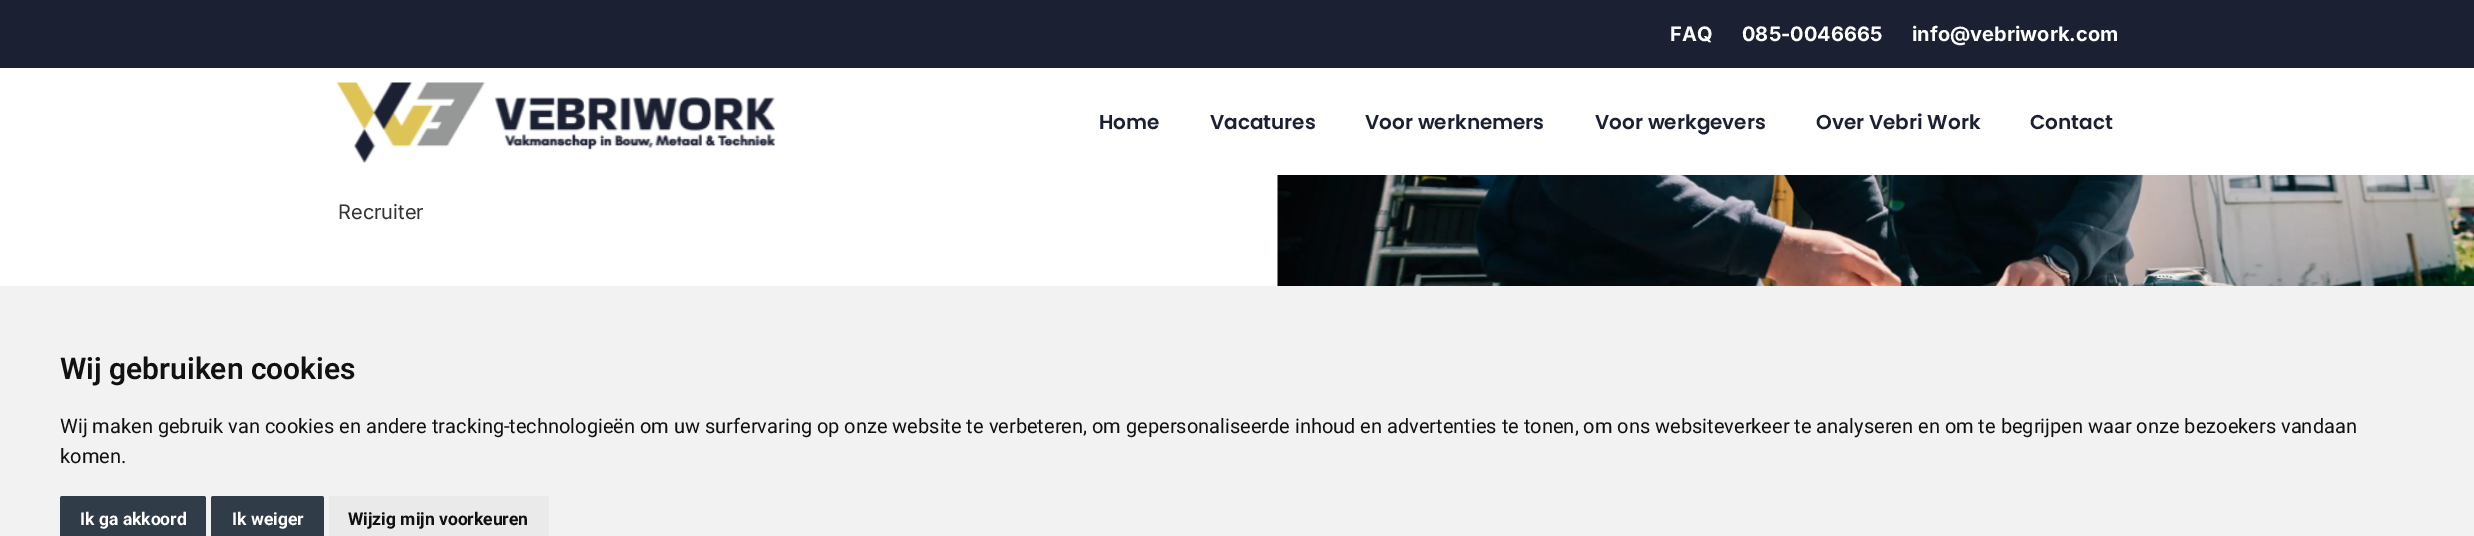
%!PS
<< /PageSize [2474 536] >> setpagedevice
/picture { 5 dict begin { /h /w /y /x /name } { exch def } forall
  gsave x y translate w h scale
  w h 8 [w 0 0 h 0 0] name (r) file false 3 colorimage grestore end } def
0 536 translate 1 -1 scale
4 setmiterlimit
1 setgray
0 0 2474 536 rectfill
0.11 0.125 0.2 setrgbcolor
0 0 2474 68 rectfill
(img1.rgb) 337 82 438 81 picture
/Inter-Bold [20 0 0 -20 0 0] selectfont
1 setgray
1670 41 moveto (FAQ) show
1742 41 moveto (085-0046665) show
1912 41 moveto (info@vebriwork.com) show
/Poppins-SemiBold [20 0 0 -20 0 0] selectfont
0.11 0.125 0.2 setrgbcolor
1099 129 moveto (Home) show
1210 129 moveto (Vacatures) show
1365 129 moveto (Voor werknemers) show
1595 129 moveto (Voor werkgevers) show
1816 129 moveto (Over Vebri Work) show
2030 129 moveto (Contact) show
(img2.rgb) 1277 175 1197 111 picture
/Inter-Regular [20 0 0 -20 0 0] selectfont
0.2 setgray
338 219 moveto (Recruiter) show
0.949 setgray
0 286 2474 250 rectfill
/Roboto-SemiBold [30 0 0 -30 0 0] selectfont
0.067 setgray
60 379 moveto (Wij gebruiken cookies) show
/Roboto-Regular [20 0 0 -20 0 0] selectfont
60 433 moveto (Wij maken gebruik van cookies en andere tracking-technologieën om uw surfervaring op onze website te verbeteren, om gepersonaliseerde inhoud en advertenties te tonen, om ons websiteverkeer te analyseren en om te begrijpen waar onze bezoekers vandaan) show
60 463 moveto (komen.) show
0.192 0.235 0.286 setrgbcolor
newpath 62.5 496 moveto 203.5 496 lineto 205 496 206 497 206 498.5 curveto 206 536 lineto 60 536 lineto 60 498.5 lineto 60 497 61 496 62.5 496 curveto closepath fill
/Roboto-Bold [17.5 0 0 -17.5 0 0] selectfont
1 setgray
80 525 moveto (Ik ga akkoord) show
0.192 0.235 0.286 setrgbcolor
newpath 213.5 496 moveto 321.5 496 lineto 323 496 324 497 324 498.5 curveto 324 536 lineto 211 536 lineto 211 498.5 lineto 211 497 212 496 213.5 496 curveto closepath fill
1 setgray
232 525 moveto (Ik weiger) show
0.918 setgray
newpath 331.5 496 moveto 546.5 496 lineto 548 496 549 497 549 498.5 curveto 549 536 lineto 329 536 lineto 329 498.5 lineto 329 497 330 496 331.5 496 curveto closepath fill
0.067 setgray
348 525 moveto (Wijzig mijn voorkeuren) show
showpage
